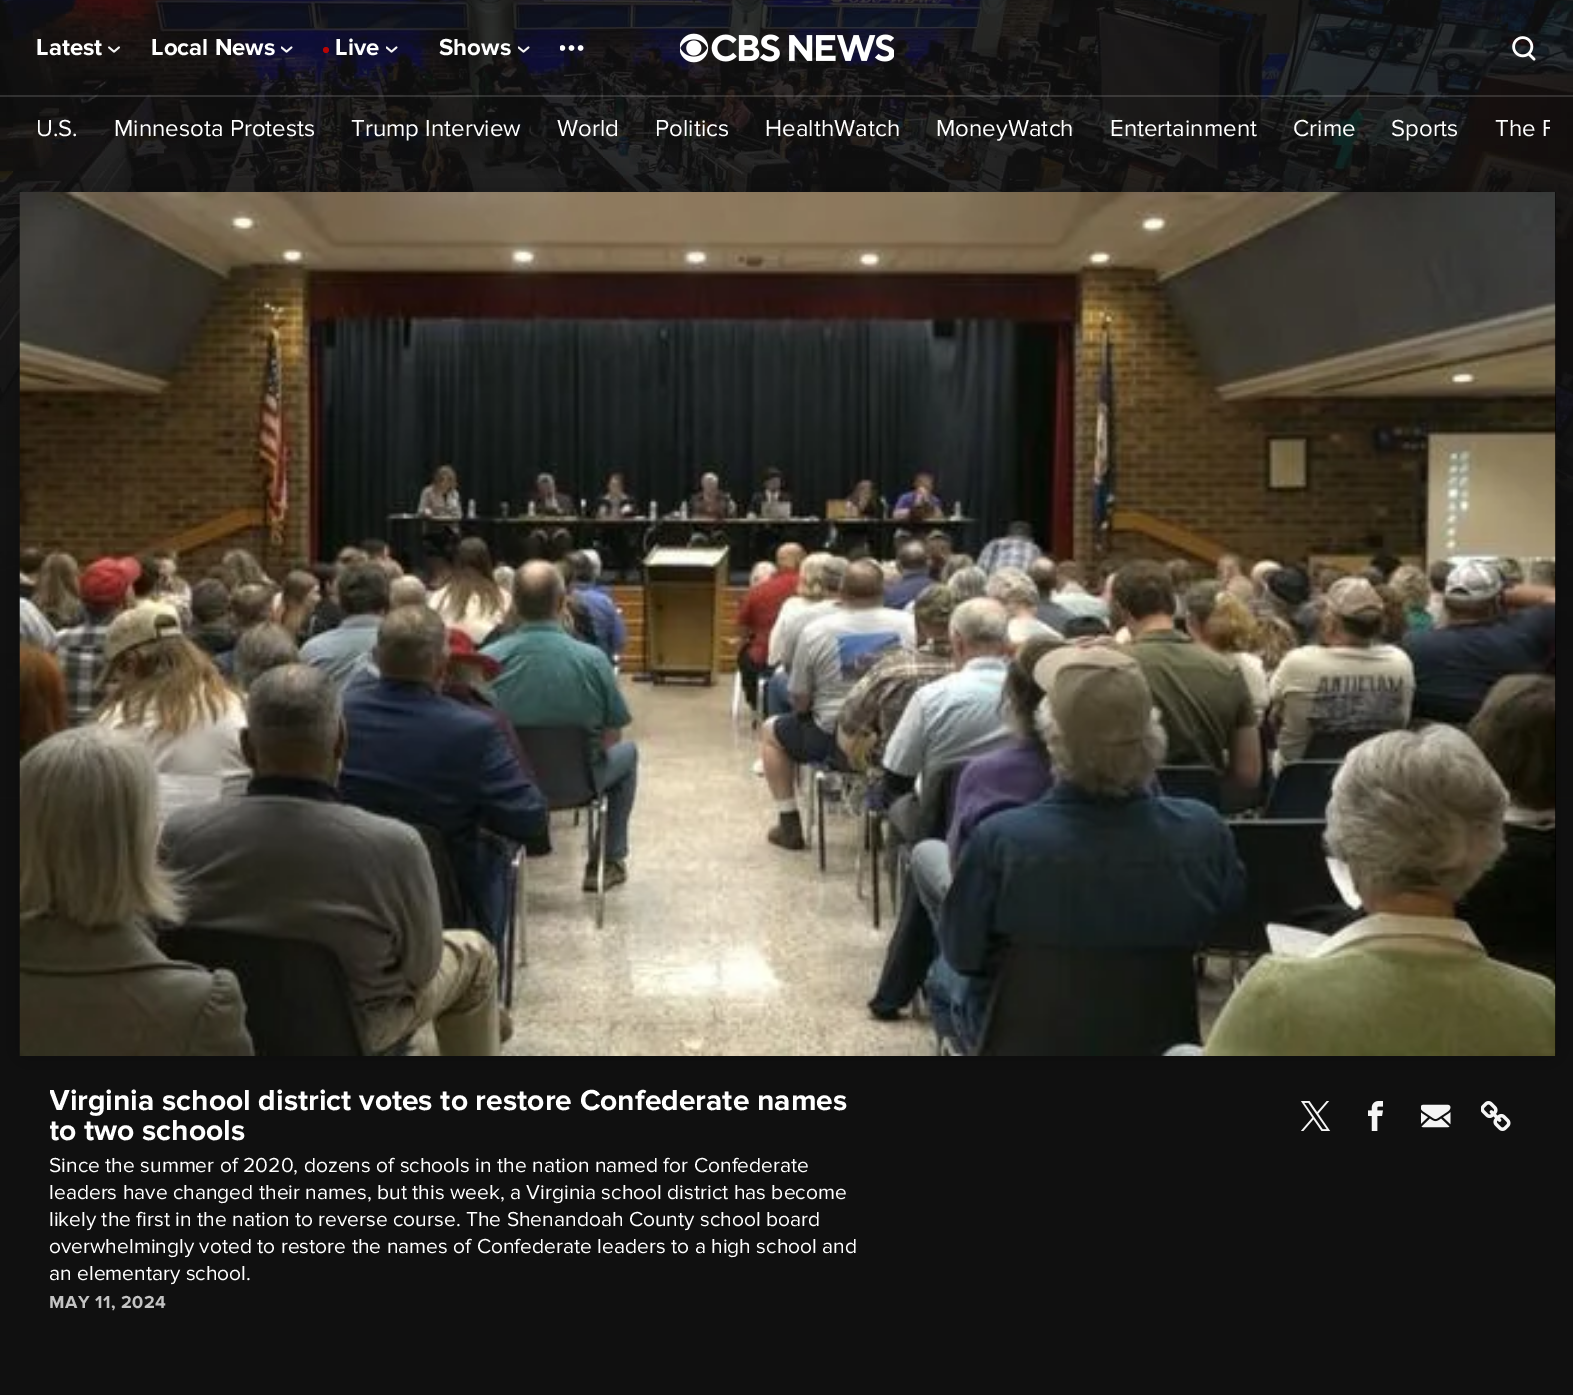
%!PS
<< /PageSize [1573 1395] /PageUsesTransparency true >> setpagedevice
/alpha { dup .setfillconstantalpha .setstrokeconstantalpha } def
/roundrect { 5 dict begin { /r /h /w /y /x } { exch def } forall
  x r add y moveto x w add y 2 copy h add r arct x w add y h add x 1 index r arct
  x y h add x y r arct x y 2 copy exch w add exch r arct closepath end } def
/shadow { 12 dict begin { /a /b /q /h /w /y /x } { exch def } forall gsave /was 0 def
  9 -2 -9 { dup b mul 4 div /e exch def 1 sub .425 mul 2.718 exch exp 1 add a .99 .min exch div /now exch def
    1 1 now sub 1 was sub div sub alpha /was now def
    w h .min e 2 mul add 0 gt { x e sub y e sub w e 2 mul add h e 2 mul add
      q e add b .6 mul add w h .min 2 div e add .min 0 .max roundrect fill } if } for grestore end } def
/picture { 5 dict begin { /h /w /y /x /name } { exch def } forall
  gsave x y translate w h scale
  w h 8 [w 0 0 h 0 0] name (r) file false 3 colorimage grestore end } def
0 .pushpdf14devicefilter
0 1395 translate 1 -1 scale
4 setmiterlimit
0.063 setgray
0 0 1573 1395 rectfill
(img8.rgb) 0 0 1573 799 picture
0.15 alpha
0.949 setgray
0 95 1573 2 rectfill
/ProximaNova-Bold [24 0 0 -24 0 0] selectfont
1 alpha
1 setgray
36 55 moveto (Latest) show
(img1.rgb) 108 46 12 7 picture
151 55 moveto (Local News) show
(img2.rgb) 281 46 12 7 picture
0.714 0.02 0.02 setrgbcolor
newpath 326 50 3 0 360 arc closepath fill
1 setgray
335 55 moveto (Live) show
(img3.rgb) 386 46 12 7 picture
439 55 moveto (Shows) show
(img4.rgb) 518 46 12 7 picture
(img5.rgb) 560 45 24 6 picture
(img6.rgb) 680 33 214 30 picture
(img7.rgb) 1512 36 24 25 picture
0 setgray
20 192 1536 864 0 19 0.3 shadow
/ProximaNova-Regular [24 0 0 -24 0 0] selectfont
1 setgray
36 136 moveto (U.S.) show
114 136 moveto (Minnesota Protests) show
351 136 moveto (Trump Interview) show
557 136 moveto (World) show
655 136 moveto (Politics) show
765 136 moveto (HealthWatch) show
936 136 moveto (MoneyWatch) show
1110 136 moveto (Entertainment) show
1293 136 moveto (Crime) show
1391 136 moveto (Sports) show
gsave
24 105 1526 48 rectclip
1495 136 moveto (The F) show
grestore
0 setgray
1555 192 1 864 rectfill
(img9.rgb) 19 192 1537 864 picture
gsave
50 1086 825 60 rectclip
/ProximaNova-Bold [30 0 0 -30 0 0] selectfont
1 setgray
49 1110 moveto (Virginia school district votes to restore Confederate names) show
49 1140 moveto (to two schools) show
grestore
/ProximaNova-Regular [21 0 0 -21 0 0] selectfont
1 setgray
49 1172 moveto (Since the summer of 2020, dozens of schools in the nation named for Confederate) show
49 1199 moveto (leaders have changed their names, but this week, a Virginia school district has become) show
49 1226 moveto (likely the first in the nation to reverse course. The Shenandoah County school board) show
49 1253 moveto (overwhelmingly voted to restore the names of Confederate leaders to a high school and) show
49 1280 moveto (an elementary school.) show
/ProximaNova-Bold [18 0 0 -18 0 0] selectfont
0.765 setgray
49 1308 moveto 0.5 0 (MAY 11, 2024) ashow
(img10.rgb) 1301 1101 30 30 picture
(img11.rgb) 1368 1101 15 30 picture
(img12.rgb) 1421 1104 30 24 picture
(img13.rgb) 1481 1101 30 30 picture
.poppdf14devicefilter showpage
